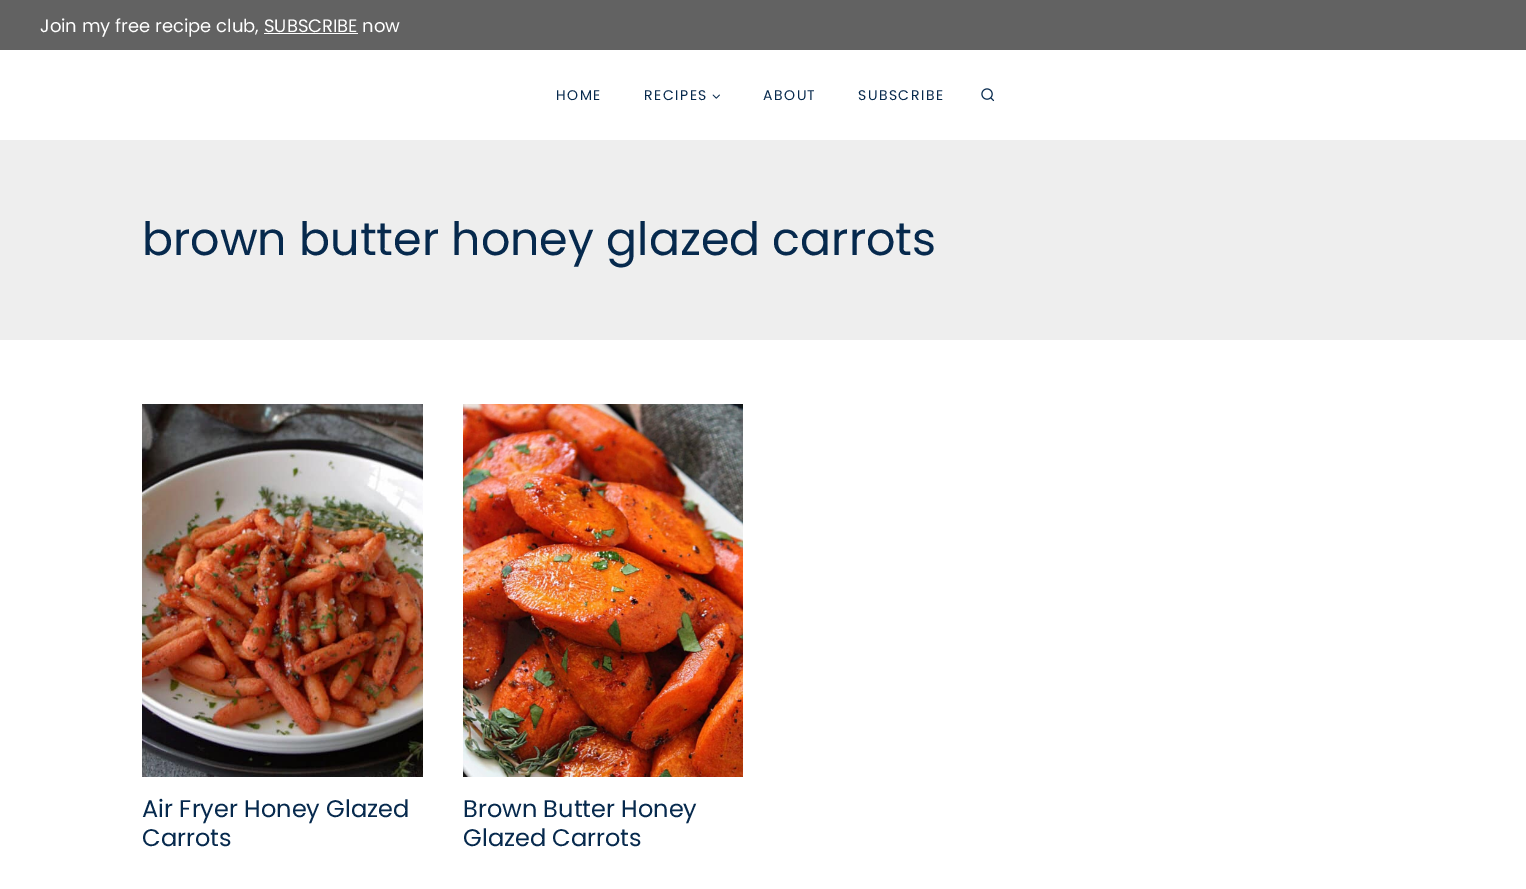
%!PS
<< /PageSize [1526 889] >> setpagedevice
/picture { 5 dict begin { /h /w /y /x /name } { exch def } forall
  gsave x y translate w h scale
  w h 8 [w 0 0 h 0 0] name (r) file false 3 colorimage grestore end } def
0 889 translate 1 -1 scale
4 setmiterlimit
1 setgray
0 0 1526 889 rectfill
0.384 setgray
0 0 1526 50 rectfill
/Poppins-Regular [18 0 0 -18 0 0] selectfont
1 setgray
40 32 moveto (Join my free recipe club, SUBSCRIBE now) show
264 33 94 1 rectfill
/Poppins-Regular [14 0 0 -14 0 0] selectfont
0.024 0.161 0.302 setrgbcolor
556 100 moveto 1.5 0 (HOME) ashow
644 100 moveto 1.5 0 (RECIPES) ashow
(img1.rgb) 712 94 8 5 picture
763 100 moveto 1.5 0 (ABOUT) ashow
858 100 moveto 1.5 0 (SUBSCRIBE) ashow
(img2.rgb) 981 88 14 14 picture
0.933 setgray
0 140 1526 200 rectfill
/Poppins-Regular [46 0 0 -46 0 0] selectfont
0.024 0.161 0.302 setrgbcolor
142 255 moveto (brown butter honey glazed carrots) show
(img3.rgb) 142 404 281 373 picture
/Poppins-Regular [24 0 0 -24 0 0] selectfont
142 817 moveto (Air Fryer Honey Glazed) show
142 846 moveto (Carrots) show
(img4.rgb) 463 404 280 373 picture
463 817 moveto (Brown Butter Honey) show
463 846 moveto (Glazed Carrots) show
showpage
